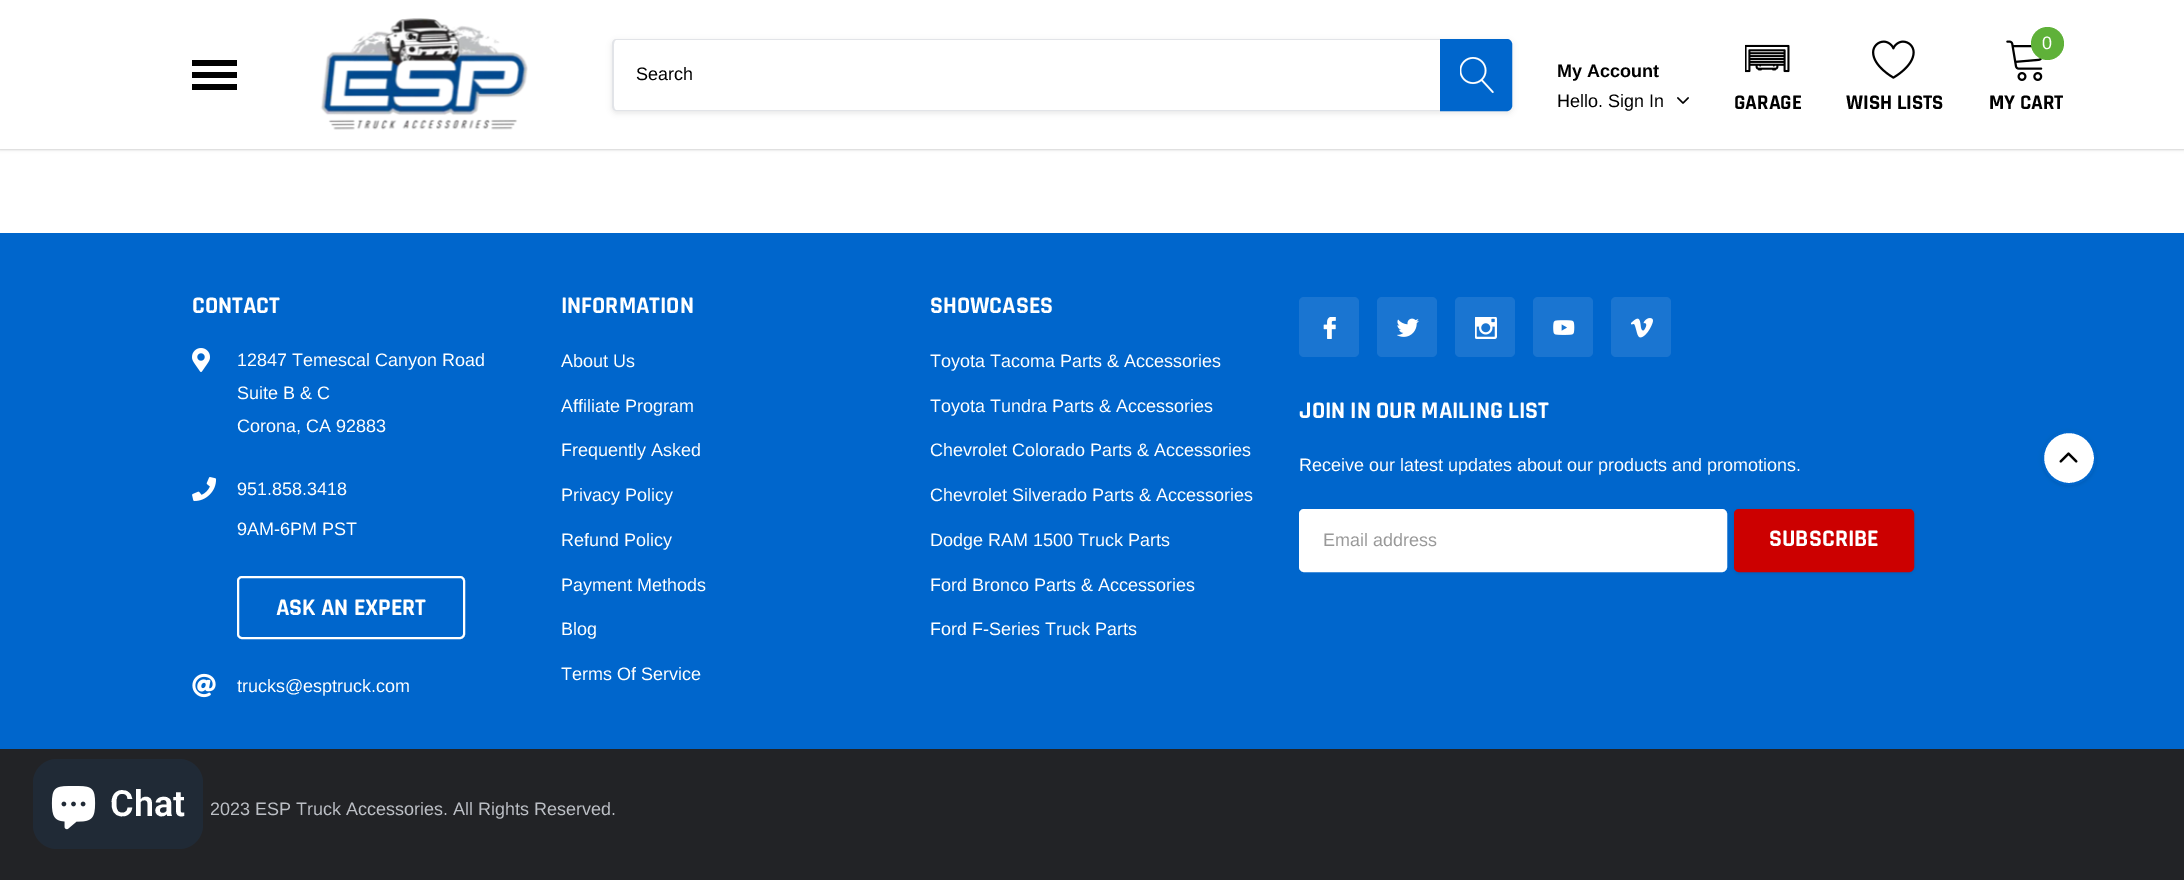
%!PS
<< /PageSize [2184 880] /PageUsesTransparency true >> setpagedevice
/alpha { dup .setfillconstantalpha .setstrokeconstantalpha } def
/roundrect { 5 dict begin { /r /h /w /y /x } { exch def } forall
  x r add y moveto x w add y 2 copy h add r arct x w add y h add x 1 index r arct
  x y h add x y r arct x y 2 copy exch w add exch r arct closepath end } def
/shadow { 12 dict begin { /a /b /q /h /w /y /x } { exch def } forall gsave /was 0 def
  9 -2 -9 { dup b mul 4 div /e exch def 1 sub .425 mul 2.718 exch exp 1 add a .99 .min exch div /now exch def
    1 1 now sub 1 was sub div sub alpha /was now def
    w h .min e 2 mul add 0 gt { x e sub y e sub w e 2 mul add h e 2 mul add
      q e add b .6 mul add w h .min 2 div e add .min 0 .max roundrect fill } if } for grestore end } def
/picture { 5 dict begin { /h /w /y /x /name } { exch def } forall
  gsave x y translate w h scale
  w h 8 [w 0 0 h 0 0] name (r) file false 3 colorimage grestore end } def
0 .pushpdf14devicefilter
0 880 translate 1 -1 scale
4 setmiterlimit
1 setgray
0 0 2184 880 rectfill
0 setgray
0 2 2184 148 0 1.5 0.1 shadow
0.06 alpha
2 setlinewidth
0 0 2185 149 rectstroke
1 alpha
1 setgray
0 0 2184 149 rectfill
0 setgray
192 72 45 6 rectfill
192 60 45 6 rectfill
192 84 45 6 rectfill
(img1.rgb) 320 18 208 112 picture
612 41 900 72 5 3 0.1 shadow
1 setgray
612 39 900 72 5 roundrect fill
0.886 0.894 0.91 setrgbcolor
newpath 616 39 moveto 1440 39 lineto 1440 111 lineto 616 111 lineto 614 111 612 109 612 106 curveto 612 44 lineto 612 41 614 39 616 39 curveto closepath 616 40 moveto 1440 40 lineto 1440 110 lineto 616 110 lineto 615 110 614 108 614 106 curveto 614 44 lineto 614 42 615 40 616 40 curveto closepath eofill
/Arimo-Regular [18 0 0 -18 0 0] selectfont
0 setgray
636 80 moveto (Search) show
0 0.4 0.8 setrgbcolor
newpath 1441 40 moveto 1507 40 lineto 1509 40 1511 42 1511 44 curveto 1511 106 lineto 1511 108 1509 110 1507 110 curveto 1441 110 lineto closepath gsave fill grestore
stroke
(img2.rgb) 1460 57 34 36 picture
/Arimo-Bold [18 0 0 -18 0 0] selectfont
0 setgray
1557 77 moveto (My Account) show
/Arimo-Regular [18 0 0 -18 0 0] selectfont
1557 107 moveto (Hello. Sign In) show
(img3.rgb) 1677 97 12 7 picture
(img4.rgb) 2006 40 37 41 picture
0.373 0.694 0.224 setrgbcolor
newpath 2047.5 43.5 16.5 0 360 arc closepath fill
1 setgray
2042 49 moveto (0) show
/Rajdhani-Bold [21 0 0 -21 0 0] selectfont
0 setgray
1989 109 moveto (MY CART) show
(img5.rgb) 1745 44 45 29 picture
1734 109 moveto (GARAGE) show
(img6.rgb) 1872 40 43 39 picture
1846 109 moveto (WISH LISTS) show
0.133 0.137 0.149 setrgbcolor
0 749 2184 131 rectfill
0.125 0.165 0.212 setrgbcolor
33 759 170 90 24 roundrect fill
(img7.rgb) 51 786 45 44 picture
/Roboto-SemiBold [36 0 0 -36 0 0] selectfont
1 setgray
110 816 moveto (Chat) show
0 0.4 0.8 setrgbcolor
0 233 2184 516 rectfill
/Rajdhani-Bold [24 0 0 -24 0 0] selectfont
1 setgray
192 313 moveto (CONTACT) show
(img8.rgb) 192 348 18 24 picture
/Arimo-Regular [18 0 0 -18 0 0] selectfont
237 366 moveto (12847 Temescal Canyon Road) show
237 399 moveto (Suite B & C) show
237 432 moveto (Corona, CA 92883) show
(img9.rgb) 192 477 25 24 picture
237 495 moveto (951.858.3418) show
237 535 moveto (9AM-6PM PST) show
238 577 226 61 4 roundrect stroke
/Rajdhani-Bold [24 0 0 -24 0 0] selectfont
276 615 moveto (ASK AN EXPERT) show
(img10.rgb) 192 673 24 25 picture
/Arimo-Regular [18 0 0 -18 0 0] selectfont
237 692 moveto (trucks@esptruck.com) show
/Rajdhani-Bold [24 0 0 -24 0 0] selectfont
561 313 moveto (INFORMATION) show
/Arimo-Regular [18 0 0 -18 0 0] selectfont
561 367 moveto (About Us) show
561 412 moveto (Affiliate Program) show
561 456 moveto (Frequently Asked) show
561 501 moveto (Privacy Policy) show
561 546 moveto (Refund Policy) show
561 591 moveto (Payment Methods) show
561 635 moveto (Blog) show
561 680 moveto (Terms Of Service) show
/Rajdhani-Bold [24 0 0 -24 0 0] selectfont
930 313 moveto (SHOWCASES) show
/Arimo-Regular [18 0 0 -18 0 0] selectfont
930 367 moveto (Toyota Tacoma Parts & Accessories) show
930 412 moveto (Toyota Tundra Parts & Accessories) show
930 456 moveto (Chevrolet Colorado Parts & Accessories) show
930 501 moveto (Chevrolet Silverado Parts & Accessories) show
930 546 moveto (Dodge RAM 1500 Truck Parts) show
930 591 moveto (Ford Bronco Parts & Accessories) show
930 635 moveto (Ford F-Series Truck Parts) show
0.102 0.459 0.82 setrgbcolor
1299 297 60 60 5 roundrect fill
(img11.rgb) 1323 317 13 22 picture
1377 297 60 60 5 roundrect fill
(img12.rgb) 1397 318 22 19 picture
1455 297 60 60 5 roundrect fill
(img13.rgb) 1475 317 22 22 picture
1533 297 60 60 5 roundrect fill
(img14.rgb) 1553 320 22 15 picture
1611 297 60 60 5 roundrect fill
(img15.rgb) 1631 318 22 20 picture
/Rajdhani-Bold [24 0 0 -24 0 0] selectfont
1 setgray
1299 418 moveto (JOIN IN OUR MAILING LIST) show
/Arimo-Regular [18 0 0 -18 0 0] selectfont
1299 471 moveto (Receive our latest updates about our products and promotions.) show
1300 510 426 61 4 roundrect gsave fill grestore
stroke
0.6 setgray
1323 546 moveto (Email address) show
0 setgray
1734 510 180 63 5 2 0.1 shadow
0.8 0 0 setrgbcolor
1735 510 178 61 4 roundrect gsave fill grestore
stroke
/Rajdhani-Bold [24 0 0 -24 0 0] selectfont
1 setgray
1769 546 moveto (SUBSCRIBE) show
/Arimo-Regular [18 0 0 -18 0 0] selectfont
0.737 0.749 0.773 setrgbcolor
210 815 moveto (2023 ESP Truck Accessories. All Rights Reserved.) show
0 setgray
2042 432 54 54 27 2 0.1 shadow
1 setgray
newpath 2069 458 26 0 360 arc closepath gsave fill grestore
0 0.4 0.8 setrgbcolor
stroke
(img16.rgb) 2059 452 19 11 picture
.poppdf14devicefilter showpage
